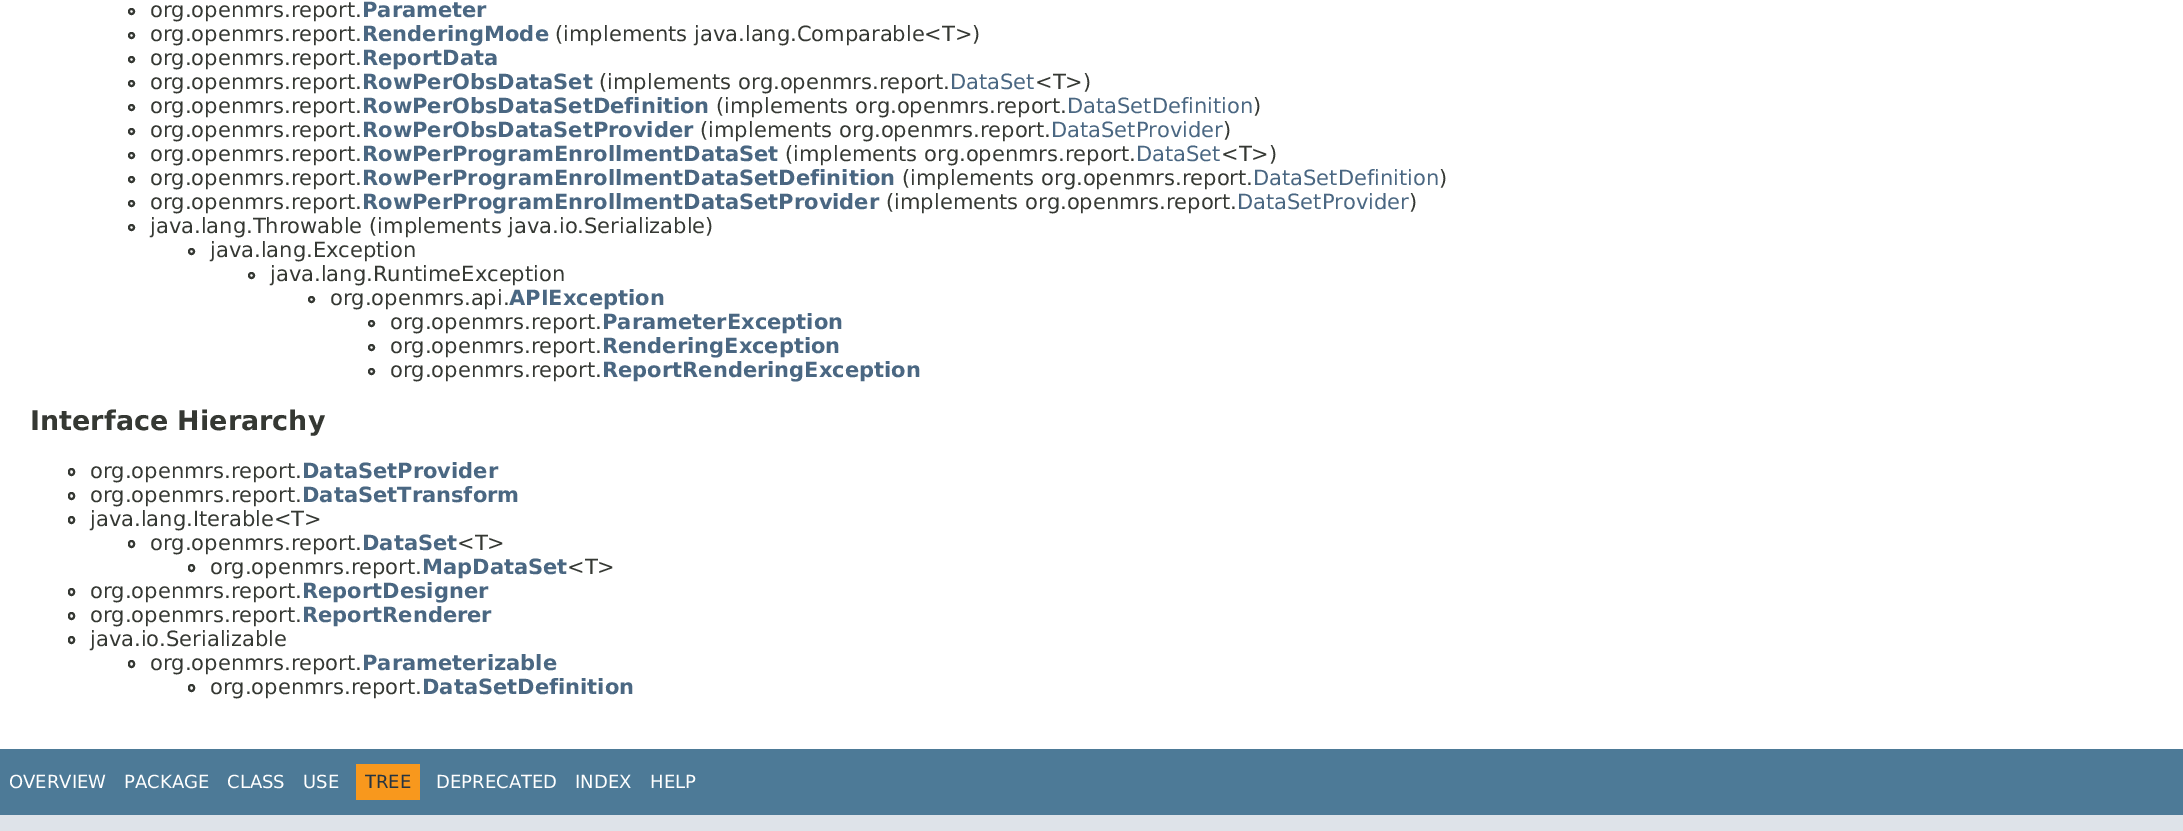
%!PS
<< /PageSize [2183 831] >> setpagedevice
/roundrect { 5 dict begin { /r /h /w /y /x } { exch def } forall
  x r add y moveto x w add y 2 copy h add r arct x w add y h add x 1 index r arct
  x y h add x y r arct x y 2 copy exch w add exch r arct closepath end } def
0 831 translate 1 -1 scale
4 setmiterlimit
1 setgray
0 0 2183 831 rectfill
0.208 0.22 0.2 setrgbcolor
2 setlinewidth
newpath 131.5 11.5 2.5 0 360 arc closepath stroke
/DejaVuSans-Regular [21 0 0 -21 0 0] selectfont
150 17 moveto (org.openmrs.report.) show
/DejaVuSans-Bold [21 0 0 -21 0 0] selectfont
0.29 0.404 0.51 setrgbcolor
362 17 moveto (Parameter) show
0.208 0.22 0.2 setrgbcolor
newpath 131.5 35.5 2.5 0 360 arc closepath stroke
/DejaVuSans-Regular [21 0 0 -21 0 0] selectfont
150 41 moveto (org.openmrs.report.) show
/DejaVuSans-Bold [21 0 0 -21 0 0] selectfont
0.29 0.404 0.51 setrgbcolor
362 41 moveto (RenderingMode) show
/DejaVuSans-Regular [21 0 0 -21 0 0] selectfont
0.208 0.22 0.2 setrgbcolor
555 41 moveto (\(implements java.lang.Comparable<T>\)) show
newpath 131.5 59.5 2.5 0 360 arc closepath stroke
150 65 moveto (org.openmrs.report.) show
/DejaVuSans-Bold [21 0 0 -21 0 0] selectfont
0.29 0.404 0.51 setrgbcolor
362 65 moveto (ReportData) show
0.208 0.22 0.2 setrgbcolor
newpath 131.5 83.5 2.5 0 360 arc closepath stroke
/DejaVuSans-Regular [21 0 0 -21 0 0] selectfont
150 89 moveto (org.openmrs.report.) show
/DejaVuSans-Bold [21 0 0 -21 0 0] selectfont
0.29 0.404 0.51 setrgbcolor
362 89 moveto (RowPerObsDataSet) show
/DejaVuSans-Regular [21 0 0 -21 0 0] selectfont
0.208 0.22 0.2 setrgbcolor
599 89 moveto (\(implements org.openmrs.report.) show
0.29 0.404 0.51 setrgbcolor
950 89 moveto (DataSet) show
0.208 0.22 0.2 setrgbcolor
1035 89 moveto (<T>\)) show
newpath 131.5 107.5 2.5 0 360 arc closepath stroke
150 113 moveto (org.openmrs.report.) show
/DejaVuSans-Bold [21 0 0 -21 0 0] selectfont
0.29 0.404 0.51 setrgbcolor
362 113 moveto (RowPerObsDataSetDefinition) show
/DejaVuSans-Regular [21 0 0 -21 0 0] selectfont
0.208 0.22 0.2 setrgbcolor
716 113 moveto (\(implements org.openmrs.report.) show
0.29 0.404 0.51 setrgbcolor
1067 113 moveto (DataSetDefinition) show
0.208 0.22 0.2 setrgbcolor
1253 113 moveto (\)) show
newpath 131.5 131.5 2.5 0 360 arc closepath stroke
150 137 moveto (org.openmrs.report.) show
/DejaVuSans-Bold [21 0 0 -21 0 0] selectfont
0.29 0.404 0.51 setrgbcolor
362 137 moveto (RowPerObsDataSetProvider) show
/DejaVuSans-Regular [21 0 0 -21 0 0] selectfont
0.208 0.22 0.2 setrgbcolor
700 137 moveto (\(implements org.openmrs.report.) show
0.29 0.404 0.51 setrgbcolor
1051 137 moveto (DataSetProvider) show
0.208 0.22 0.2 setrgbcolor
1223 137 moveto (\)) show
newpath 131.5 155.5 2.5 0 360 arc closepath stroke
150 161 moveto (org.openmrs.report.) show
/DejaVuSans-Bold [21 0 0 -21 0 0] selectfont
0.29 0.404 0.51 setrgbcolor
362 161 moveto (RowPerProgramEnrollmentDataSet) show
/DejaVuSans-Regular [21 0 0 -21 0 0] selectfont
0.208 0.22 0.2 setrgbcolor
785 161 moveto (\(implements org.openmrs.report.) show
0.29 0.404 0.51 setrgbcolor
1136 161 moveto (DataSet) show
0.208 0.22 0.2 setrgbcolor
1221 161 moveto (<T>\)) show
newpath 131.5 179.5 2.5 0 360 arc closepath stroke
150 185 moveto (org.openmrs.report.) show
/DejaVuSans-Bold [21 0 0 -21 0 0] selectfont
0.29 0.404 0.51 setrgbcolor
362 185 moveto (RowPerProgramEnrollmentDataSetDefinition) show
/DejaVuSans-Regular [21 0 0 -21 0 0] selectfont
0.208 0.22 0.2 setrgbcolor
902 185 moveto (\(implements org.openmrs.report.) show
0.29 0.404 0.51 setrgbcolor
1253 185 moveto (DataSetDefinition) show
0.208 0.22 0.2 setrgbcolor
1439 185 moveto (\)) show
newpath 131.5 203.5 2.5 0 360 arc closepath stroke
150 209 moveto (org.openmrs.report.) show
/DejaVuSans-Bold [21 0 0 -21 0 0] selectfont
0.29 0.404 0.51 setrgbcolor
362 209 moveto (RowPerProgramEnrollmentDataSetProvider) show
/DejaVuSans-Regular [21 0 0 -21 0 0] selectfont
0.208 0.22 0.2 setrgbcolor
886 209 moveto (\(implements org.openmrs.report.) show
0.29 0.404 0.51 setrgbcolor
1237 209 moveto (DataSetProvider) show
0.208 0.22 0.2 setrgbcolor
1409 209 moveto (\)) show
newpath 131.5 227.5 2.5 0 360 arc closepath stroke
150 233 moveto (java.lang.Throwable \(implements java.io.Serializable\)) show
newpath 191.5 251.5 2.5 0 360 arc closepath stroke
210 257 moveto (java.lang.Exception) show
newpath 251.5 275.5 2.5 0 360 arc closepath stroke
270 281 moveto (java.lang.RuntimeException) show
newpath 311.5 299.5 2.5 0 360 arc closepath stroke
330 305 moveto (org.openmrs.api.) show
/DejaVuSans-Bold [21 0 0 -21 0 0] selectfont
0.29 0.404 0.51 setrgbcolor
509 305 moveto (APIException) show
0.208 0.22 0.2 setrgbcolor
newpath 371.5 323.5 2.5 0 360 arc closepath stroke
/DejaVuSans-Regular [21 0 0 -21 0 0] selectfont
390 329 moveto (org.openmrs.report.) show
/DejaVuSans-Bold [21 0 0 -21 0 0] selectfont
0.29 0.404 0.51 setrgbcolor
602 329 moveto (ParameterException) show
0.208 0.22 0.2 setrgbcolor
newpath 371.5 347.5 2.5 0 360 arc closepath stroke
/DejaVuSans-Regular [21 0 0 -21 0 0] selectfont
390 353 moveto (org.openmrs.report.) show
/DejaVuSans-Bold [21 0 0 -21 0 0] selectfont
0.29 0.404 0.51 setrgbcolor
602 353 moveto (RenderingException) show
0.208 0.22 0.2 setrgbcolor
newpath 371.5 371.5 2.5 0 360 arc closepath stroke
/DejaVuSans-Regular [21 0 0 -21 0 0] selectfont
390 377 moveto (org.openmrs.report.) show
/DejaVuSans-Bold [21 0 0 -21 0 0] selectfont
0.29 0.404 0.51 setrgbcolor
602 377 moveto (ReportRenderingException) show
/DejaVuSans-Bold [27 0 0 -27 0 0] selectfont
0.208 0.22 0.2 setrgbcolor
30 430 moveto (Interface Hierarchy) show
69 469 5 6 2.5 roundrect stroke
/DejaVuSans-Regular [21 0 0 -21 0 0] selectfont
90 478 moveto (org.openmrs.report.) show
/DejaVuSans-Bold [21 0 0 -21 0 0] selectfont
0.29 0.404 0.51 setrgbcolor
302 478 moveto (DataSetProvider) show
0.208 0.22 0.2 setrgbcolor
69 493 5 6 2.5 roundrect stroke
/DejaVuSans-Regular [21 0 0 -21 0 0] selectfont
90 502 moveto (org.openmrs.report.) show
/DejaVuSans-Bold [21 0 0 -21 0 0] selectfont
0.29 0.404 0.51 setrgbcolor
302 502 moveto (DataSetTransform) show
0.208 0.22 0.2 setrgbcolor
69 517 5 6 2.5 roundrect stroke
/DejaVuSans-Regular [21 0 0 -21 0 0] selectfont
90 526 moveto (java.lang.Iterable<T>) show
129 541 5 6 2.5 roundrect stroke
150 550 moveto (org.openmrs.report.) show
/DejaVuSans-Bold [21 0 0 -21 0 0] selectfont
0.29 0.404 0.51 setrgbcolor
362 550 moveto (DataSet) show
/DejaVuSans-Regular [21 0 0 -21 0 0] selectfont
0.208 0.22 0.2 setrgbcolor
457 550 moveto (<T>) show
189 565 5 6 2.5 roundrect stroke
210 574 moveto (org.openmrs.report.) show
/DejaVuSans-Bold [21 0 0 -21 0 0] selectfont
0.29 0.404 0.51 setrgbcolor
422 574 moveto (MapDataSet) show
/DejaVuSans-Regular [21 0 0 -21 0 0] selectfont
0.208 0.22 0.2 setrgbcolor
567 574 moveto (<T>) show
69 589 5 6 2.5 roundrect stroke
90 598 moveto (org.openmrs.report.) show
/DejaVuSans-Bold [21 0 0 -21 0 0] selectfont
0.29 0.404 0.51 setrgbcolor
302 598 moveto (ReportDesigner) show
0.208 0.22 0.2 setrgbcolor
69 613 5 6 2.5 roundrect stroke
/DejaVuSans-Regular [21 0 0 -21 0 0] selectfont
90 622 moveto (org.openmrs.report.) show
/DejaVuSans-Bold [21 0 0 -21 0 0] selectfont
0.29 0.404 0.51 setrgbcolor
302 622 moveto (ReportRenderer) show
0.208 0.22 0.2 setrgbcolor
69 637 5 6 2.5 roundrect stroke
/DejaVuSans-Regular [21 0 0 -21 0 0] selectfont
90 646 moveto (java.io.Serializable) show
129 661 5 6 2.5 roundrect stroke
150 670 moveto (org.openmrs.report.) show
/DejaVuSans-Bold [21 0 0 -21 0 0] selectfont
0.29 0.404 0.51 setrgbcolor
362 670 moveto (Parameterizable) show
0.208 0.22 0.2 setrgbcolor
189 685 5 6 2.5 roundrect stroke
/DejaVuSans-Regular [21 0 0 -21 0 0] selectfont
210 694 moveto (org.openmrs.report.) show
/DejaVuSans-Bold [21 0 0 -21 0 0] selectfont
0.29 0.404 0.51 setrgbcolor
422 694 moveto (DataSetDefinition) show
0.302 0.478 0.592 setrgbcolor
0 749 2183 66 rectfill
/DejaVuSans-Regular [18 0 0 -18 0 0] selectfont
1 setgray
9 788 moveto (OVERVIEW) show
124 788 moveto (PACKAGE) show
227 788 moveto (CLASS) show
303 788 moveto (USE) show
0.973 0.596 0.114 setrgbcolor
356 764 64 36 rectfill
0.145 0.204 0.255 setrgbcolor
365 788 moveto (TREE) show
1 setgray
436 788 moveto (DEPRECATED) show
575 788 moveto (INDEX) show
650 788 moveto (HELP) show
0.871 0.89 0.914 setrgbcolor
0 815 2183 16 rectfill
showpage
